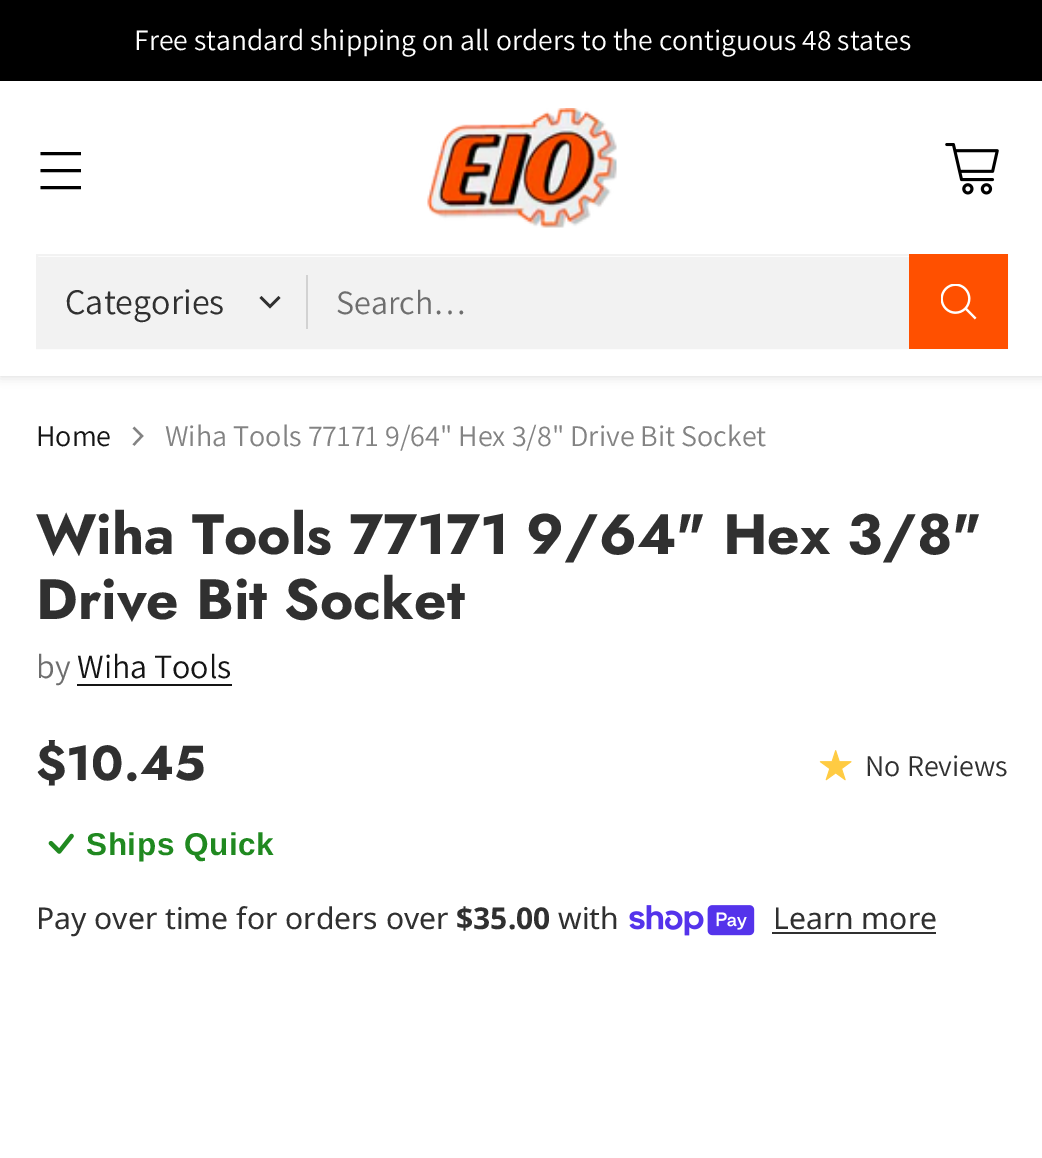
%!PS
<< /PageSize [1042 1158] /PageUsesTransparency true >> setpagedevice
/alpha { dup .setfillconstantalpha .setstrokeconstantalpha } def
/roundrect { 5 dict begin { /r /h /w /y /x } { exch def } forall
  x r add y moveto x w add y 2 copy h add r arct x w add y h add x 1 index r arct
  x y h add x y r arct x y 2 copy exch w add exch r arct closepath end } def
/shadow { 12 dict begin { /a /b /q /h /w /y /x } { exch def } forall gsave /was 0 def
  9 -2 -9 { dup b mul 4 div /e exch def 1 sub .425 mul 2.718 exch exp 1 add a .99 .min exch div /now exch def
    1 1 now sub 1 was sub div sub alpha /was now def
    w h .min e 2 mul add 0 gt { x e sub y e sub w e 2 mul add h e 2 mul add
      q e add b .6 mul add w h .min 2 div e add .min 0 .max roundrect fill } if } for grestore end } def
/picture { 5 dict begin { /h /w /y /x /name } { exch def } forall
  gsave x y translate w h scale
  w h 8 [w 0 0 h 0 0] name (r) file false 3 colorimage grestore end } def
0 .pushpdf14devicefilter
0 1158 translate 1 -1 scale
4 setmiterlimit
1 setgray
0 0 1042 1158 rectfill
0 setgray
0 81 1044 295 0 5.5 0.15 shadow
0 0 1042 81 rectfill
/Assistant-Regular [29.6 0 0 -29.6 0 0] selectfont
1 setgray
134 50 moveto (Free standard shipping on all orders to the contiguous 48 states) show
0 81 1042 295 rectfill
0 setgray
2.9 setlinewidth
newpath 40.5 170.5 moveto 81 170.5 lineto 40.5 153.5 moveto 81 153.5 lineto 40.5 187.5 moveto 81 187.5 lineto stroke
(img1.rgb) 427 108 190 120 picture
(img2.rgb) 945 143 54 52 picture
0.949 setgray
2 setlinewidth
37 255 970 93 rectstroke
38 257 871 90 rectfill
/Assistant-Regular [36 0 0 -36 0 0] selectfont
0.188 setgray
65 314 moveto (Categories) show
2.6 setlinewidth
newpath 260.5 297 moveto 270 306.5 lineto 279.5 297 lineto stroke
0.824 setgray
306 275 2 54 rectfill
/Assistant-Regular [34 0 0 -34 0 0] selectfont
0.431 setgray
336 314 moveto (Search…) show
1 0.314 0 setrgbcolor
909 254 99 95 rectfill
(img3.rgb) 941 284 36 36 picture
/Assistant-Regular [30.05 0 0 -30.05 0 0] selectfont
0.082 setgray
36 446 moveto (Home) show
0.514 setgray
2.3 setlinewidth
newpath 133.5 445 moveto 142 436 lineto 133.5 427.5 lineto stroke
165 446 moveto (Wiha Tools 77171 9/64" Hex 3/8" Drive Bit Socket) show
/Jost-Bold [56.75 0 0 -56.75 0 0] selectfont
0.188 setgray
36 554 moveto (Wiha Tools 77171 9/64" Hex 3/8") show
36 619 moveto (Drive Bit Socket) show
/Assistant-Regular [34 0 0 -34 0 0] selectfont
0.431 setgray
36 678 moveto (by) show
0.082 setgray
77 678 moveto (Wiha Tools) show
77 684 155 2 rectfill
/Jost-Bold [49 0 0 -49 0 0] selectfont
0.188 setgray
36 780 moveto ($10.45) show
(img4.rgb) 819 750 33 31 picture
/Assistant-Regular [30.05 0 0 -30.05 0 0] selectfont
865 776 moveto (No Reviews) show
(img5.rgb) 48 833 26 21 picture
/LiberationSans-Bold [31.5 0 0 -31.5 0 0] selectfont
0.125 0.537 0.125 setrgbcolor
86 855 moveto 0.6 0 (Ships Quick) ashow
/NotoSans-Regular [30.05 0 0 -30.05 0 0] selectfont
0.188 setgray
36 929 moveto (Pay over time for orders over) show
/NotoSans-Bold [30.05 0 0 -30.05 0 0] selectfont
456 929 moveto ($35.00) show
/NotoSans-Regular [30.05 0 0 -30.05 0 0] selectfont
558 929 moveto (with) show
(img6.rgb) 629 905 126 31 picture
773 929 moveto (Learn more) show
772 932 164 2 rectfill
.poppdf14devicefilter showpage
